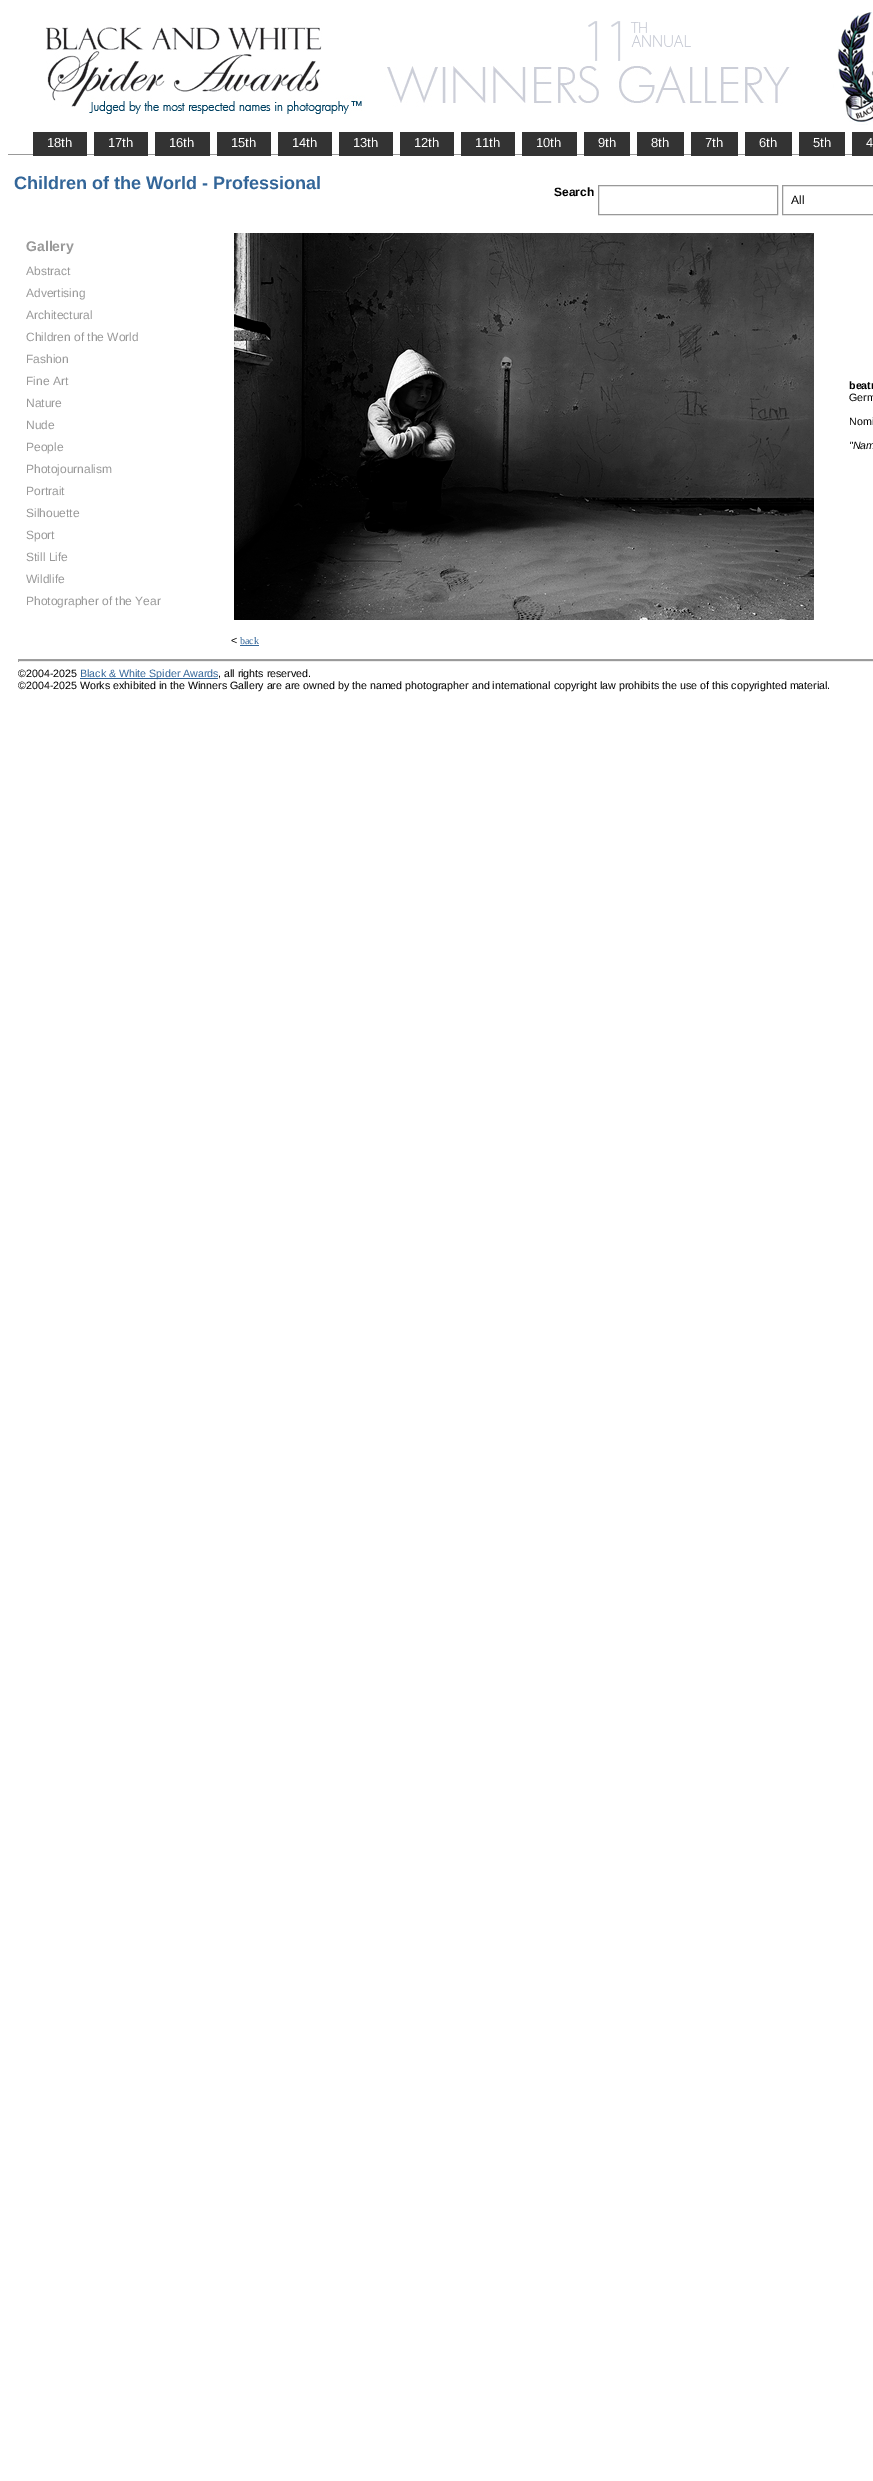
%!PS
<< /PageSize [873 2481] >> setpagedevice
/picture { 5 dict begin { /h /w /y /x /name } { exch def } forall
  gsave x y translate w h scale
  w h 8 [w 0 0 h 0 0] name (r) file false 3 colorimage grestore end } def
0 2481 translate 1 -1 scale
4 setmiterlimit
1 setgray
0 0 873 2481 rectfill
(img1.rgb) 45 12 828 113 picture
0.6 setgray
8 154 844 1 rectfill
0.2 setgray
33 132 54 24 rectfill
/LiberationSans-Regular [13 0 0 -13 0 0] selectfont
1 setgray
47 147 moveto (18th) show
0.2 setgray
94 132 54 24 rectfill
1 setgray
108 147 moveto (17th) show
0.2 setgray
155 132 55 24 rectfill
1 setgray
169 147 moveto (16th) show
0.2 setgray
217 132 54 24 rectfill
1 setgray
231 147 moveto (15th) show
0.2 setgray
278 132 54 24 rectfill
1 setgray
292 147 moveto (14th) show
0.2 setgray
339 132 54 24 rectfill
1 setgray
353 147 moveto (13th) show
0.2 setgray
400 132 54 24 rectfill
1 setgray
414 147 moveto (12th) show
0.2 setgray
461 132 54 24 rectfill
1 setgray
475 147 moveto (11th) show
0.2 setgray
522 132 55 24 rectfill
1 setgray
536 147 moveto (10th) show
0.2 setgray
584 132 46 24 rectfill
1 setgray
598 147 moveto (9th) show
0.2 setgray
637 132 47 24 rectfill
1 setgray
651 147 moveto (8th) show
0.2 setgray
691 132 47 24 rectfill
1 setgray
705 147 moveto (7th) show
0.2 setgray
745 132 47 24 rectfill
1 setgray
759 147 moveto (6th) show
0.2 setgray
799 132 46 24 rectfill
1 setgray
813 147 moveto (5th) show
0.2 setgray
852 132 21 24 rectfill
1 setgray
866 147 moveto (4) show
/LiberationSans-Bold [18 0 0 -18 0 0] selectfont
0.2 0.4 0.6 setrgbcolor
14 189 moveto (Children of the World - Professional) show
/LiberationSans-Bold [12 0 0 -12 0 0] selectfont
0 setgray
554 196 moveto (Search) show
0.6 setgray
598.5 185.5 179 29 rectstroke
782.5 185.5 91 29 rectstroke
/LiberationSans-Regular [12 0 0 -12 0 0] selectfont
0 setgray
791 204 moveto (All) show
/LiberationSans-Bold [14 0 0 -14 0 0] selectfont
0.6 setgray
26 251 moveto (Gallery) show
/LiberationSans-Regular [12 0 0 -12 0 0] selectfont
26 275 moveto (Abstract) show
26 297 moveto (Advertising) show
26 319 moveto (Architectural) show
26 341 moveto (Children of the World) show
26 363 moveto (Fashion) show
26 385 moveto (Fine Art) show
26 407 moveto (Nature) show
26 429 moveto (Nude) show
26 451 moveto (People) show
26 473 moveto (Photojournalism) show
26 495 moveto (Portrait) show
26 517 moveto (Silhouette) show
26 539 moveto (Sport) show
26 561 moveto (Still Life) show
26 583 moveto (Wildlife) show
26 605 moveto (Photographer of the Year) show
(img2.rgb) 234 233 580 387 picture
/LiberationSans-Bold [10.67 0 0 -10.67 0 0] selectfont
0 setgray
849 389 moveto (beatr) show
/LiberationSans-Regular [10.67 0 0 -10.67 0 0] selectfont
849 401 moveto (Germ) show
849 425 moveto (Nomi) show
/LiberationSans-Italic [10.67 0 0 -10.67 0 0] selectfont
849 449 moveto ("Nam) show
/LiberationSans-Regular [10.67 0 0 -10.67 0 0] selectfont
231 644 moveto (<) show
/LiberationSerif-Regular [10 0 0 -10 0 0] selectfont
0.2 0.4 0.6 setrgbcolor
240 644 moveto (back) show
240 645 19 1 rectfill
0.6 setgray
18 660 855 1 rectfill
0.624 setgray
18 659 855 1 rectfill
0.933 setgray
18 661 855 1 rectfill
0.624 setgray
18 659 1 3 rectfill
/LiberationSans-Regular [10.67 0 0 -10.67 0 0] selectfont
0 setgray
18 677 moveto (©2004-2025) show
0.2 0.4 0.6 setrgbcolor
80 678 138 1 rectfill
80 677 moveto (Black & White Spider Awards) show
0 setgray
218 677 moveto (, all rights reserved.) show
18 689 moveto (©2004-2025 Works exhibited in the Winners Gallery are are owned by the named photographer and international copyright law prohibits the use of this copyrighted material.) show
showpage
